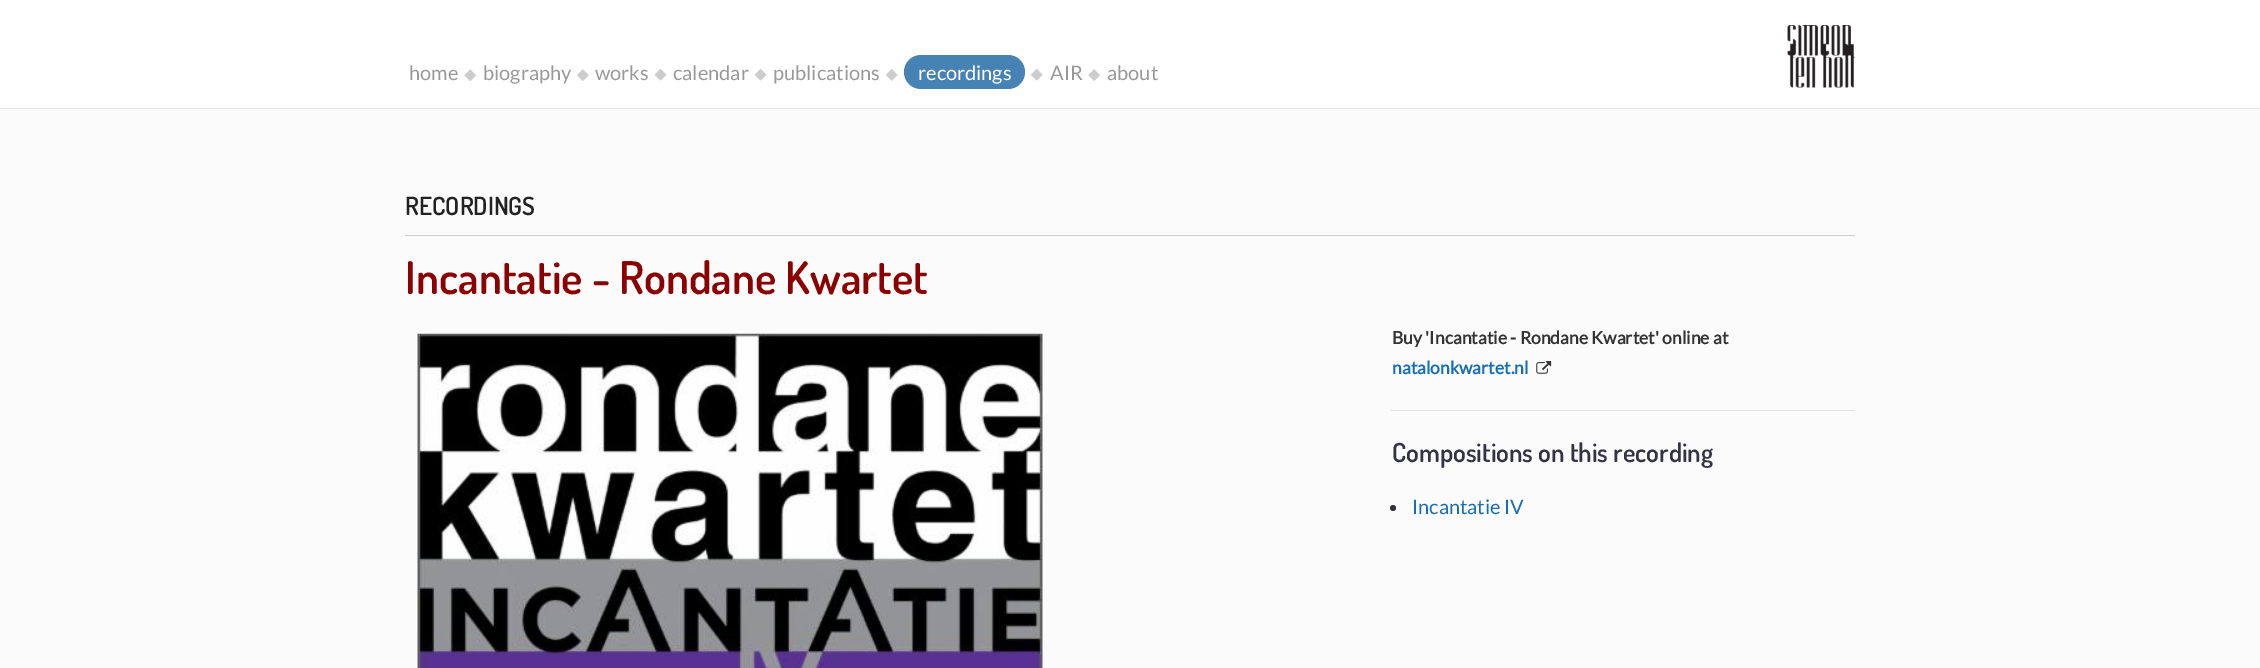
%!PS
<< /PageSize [2260 668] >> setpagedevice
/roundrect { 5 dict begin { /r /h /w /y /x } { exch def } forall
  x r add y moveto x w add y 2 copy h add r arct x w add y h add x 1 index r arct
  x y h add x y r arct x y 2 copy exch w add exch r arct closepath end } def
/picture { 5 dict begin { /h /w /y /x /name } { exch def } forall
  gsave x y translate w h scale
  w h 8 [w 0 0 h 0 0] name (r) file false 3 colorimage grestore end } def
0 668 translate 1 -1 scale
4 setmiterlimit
0.984 setgray
0 0 2260 668 rectfill
1 setgray
0 0 2260 108 rectfill
0.898 setgray
0 108 2260 1 rectfill
/Lato-Regular [20 0 0 -20 0 0] selectfont
0.6 setgray
409 80 moveto (home) show
(img1.rgb) 464 69 13 13 picture
483 80 moveto (biography) show
(img2.rgb) 577 69 12 12 picture
595 80 moveto (works) show
(img3.rgb) 654 69 13 12 picture
673 80 moveto (calendar) show
(img3.rgb) 754 69 13 12 picture
773 80 moveto (publications) show
(img4.rgb) 886 69 12 12 picture
0.275 0.51 0.706 setrgbcolor
904 55 121 34 17 roundrect fill
1 setgray
918 80 moveto (recordings) show
(img5.rgb) 1031 69 12 12 picture
0.6 setgray
1050 80 moveto (AIR) show
(img6.rgb) 1088 69 12 12 picture
1107 80 moveto (about) show
(img7.rgb) 1787 25 68 63 picture
0.8 setgray
405 235 1450 1 rectfill
/Dosis-SemiBold [25 0 0 -25 0 0] selectfont
0.133 setgray
405 215 moveto (RECORDINGS) show
/Dosis-SemiBold [45 0 0 -45 0 0] selectfont
0.545 0 0 setrgbcolor
405 294 moveto (Incantatie - Rondane Kwartet) show
(img8.rgb) 417 333 626 335 picture
/Lato-Bold [17.5 0 0 -17.5 0 0] selectfont
0.2 setgray
1392 344 moveto (Buy 'Incantatie - Rondane Kwartet' online at) show
0.094 0.431 0.706 setrgbcolor
1392 374 moveto (natalonkwartet.nl) show
(img9.rgb) 1536 361 16 13 picture
0.886 setgray
1391 410 464 1 rectfill
/Dosis-SemiBold [26.25 0 0 -26.25 0 0] selectfont
0.2 0.2 0.267 setrgbcolor
1392 462 moveto (Compositions on this recording) show
0.192 0.204 0.224 setrgbcolor
newpath 1393 508 3 0 360 arc closepath fill
/Lato-Regular [20 0 0 -20 0 0] selectfont
0.094 0.431 0.706 setrgbcolor
1412 514 moveto (Incantatie IV) show
showpage
